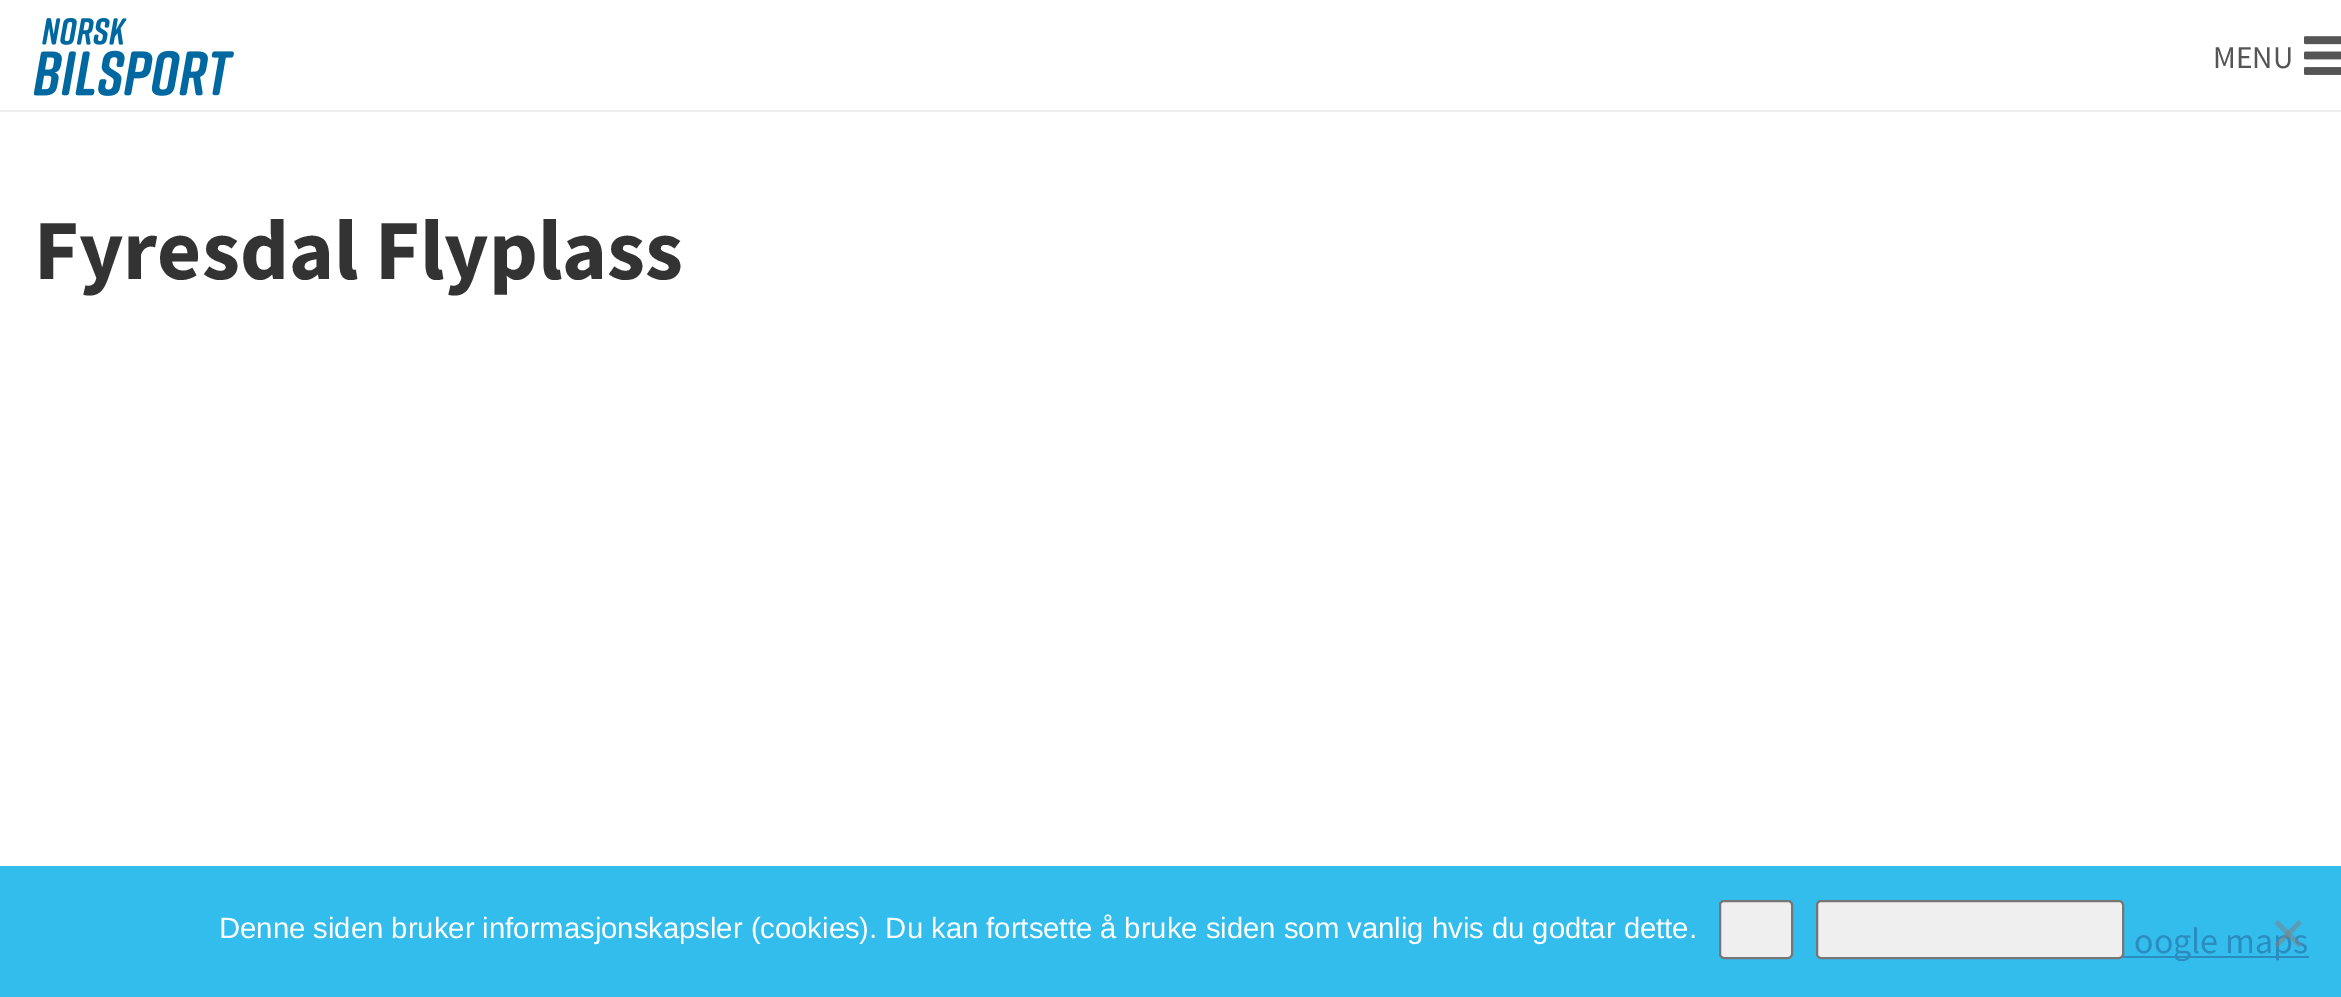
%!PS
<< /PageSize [2341 997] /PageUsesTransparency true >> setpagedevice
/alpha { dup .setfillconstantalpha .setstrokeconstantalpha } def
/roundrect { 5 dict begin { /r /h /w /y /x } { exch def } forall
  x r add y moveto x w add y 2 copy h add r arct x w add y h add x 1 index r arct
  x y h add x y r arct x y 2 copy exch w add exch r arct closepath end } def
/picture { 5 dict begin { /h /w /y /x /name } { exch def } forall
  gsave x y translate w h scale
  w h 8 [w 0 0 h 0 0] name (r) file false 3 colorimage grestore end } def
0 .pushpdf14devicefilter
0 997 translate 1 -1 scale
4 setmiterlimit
1 setgray
0 0 2341 997 rectfill
0.2 0.741 0.929 setrgbcolor
0 866 2341 131 rectfill
0.933 setgray
0 110 2341 2 rectfill
(img1.rgb) 34 18 200 78 picture
/SourceSansPro-Regular [31.5 0 0 -31.5 0 0] selectfont
0.333 setgray
2213 68 moveto (MENU) show
(img2.rgb) 2304 36 37 39 picture
/SourceSansPro-Bold [85.5 0 0 -85.5 0 0] selectfont
0.2 setgray
34 279 moveto (Fyresdal Flyplass) show
0.169 0.549 0.749 setrgbcolor
2122 956 187 2 rectfill
/SourceSansPro-Regular [36 0 0 -36 0 0] selectfont
2134 953 moveto (oogle maps) show
/LiberationSans-Regular [29.25 0 0 -29.25 0 0] selectfont
1 setgray
219 938 moveto (Denne siden bruker informasjonskapsler \(cookies\). Du kan fortsette å bruke siden som vanlig hvis du godtar dette.) show
0.937 setgray
1720 901 72 57 4 roundrect gsave fill grestore
0.463 setgray
2 setlinewidth
stroke
0.937 setgray
1817 901 306 57 4 roundrect gsave fill grestore
0.463 setgray
stroke
0.5 alpha
0.502 setgray
newpath 2298.5 920 moveto 2302 923.5 lineto 2278 947.5 lineto 2274.5 944 lineto closepath fill
newpath 2274.5 923.5 moveto 2278 920 lineto 2302 944 lineto 2298.5 947.5 lineto closepath fill
.poppdf14devicefilter showpage
